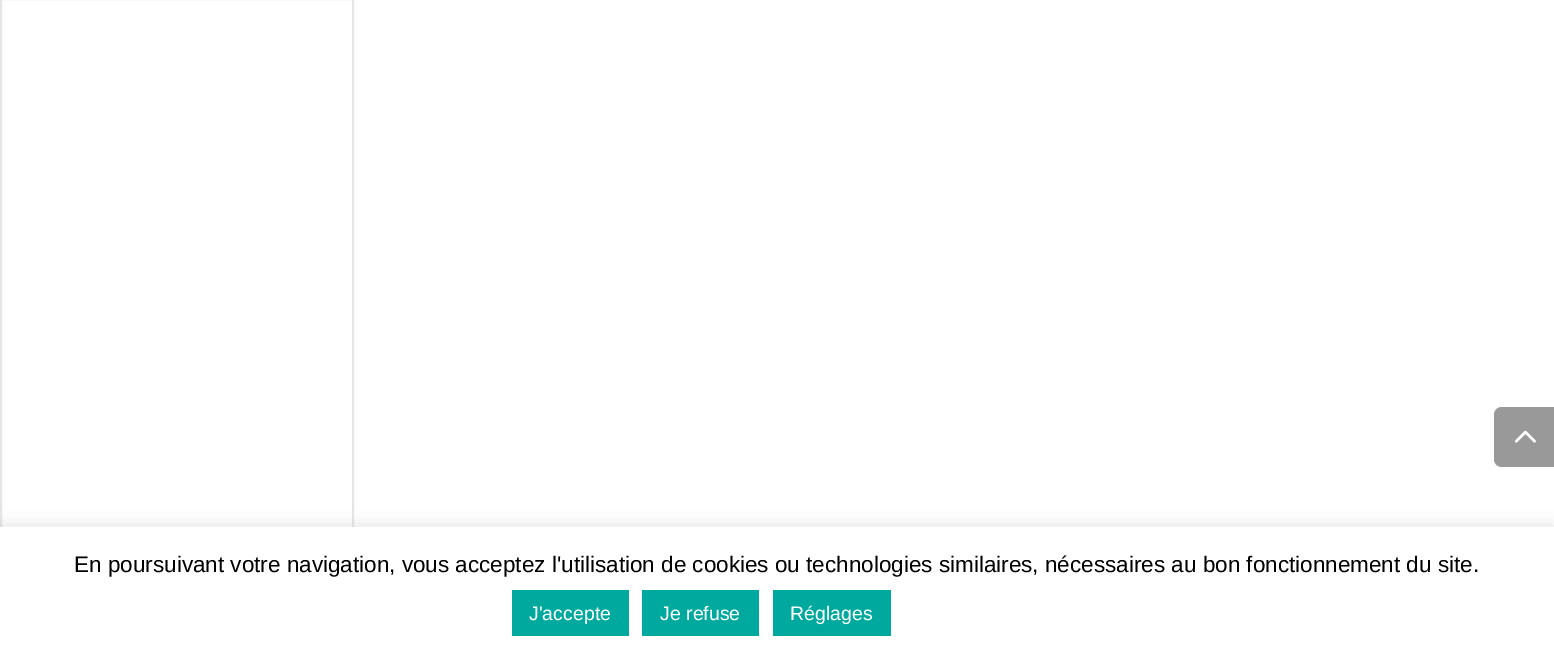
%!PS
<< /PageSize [1554 654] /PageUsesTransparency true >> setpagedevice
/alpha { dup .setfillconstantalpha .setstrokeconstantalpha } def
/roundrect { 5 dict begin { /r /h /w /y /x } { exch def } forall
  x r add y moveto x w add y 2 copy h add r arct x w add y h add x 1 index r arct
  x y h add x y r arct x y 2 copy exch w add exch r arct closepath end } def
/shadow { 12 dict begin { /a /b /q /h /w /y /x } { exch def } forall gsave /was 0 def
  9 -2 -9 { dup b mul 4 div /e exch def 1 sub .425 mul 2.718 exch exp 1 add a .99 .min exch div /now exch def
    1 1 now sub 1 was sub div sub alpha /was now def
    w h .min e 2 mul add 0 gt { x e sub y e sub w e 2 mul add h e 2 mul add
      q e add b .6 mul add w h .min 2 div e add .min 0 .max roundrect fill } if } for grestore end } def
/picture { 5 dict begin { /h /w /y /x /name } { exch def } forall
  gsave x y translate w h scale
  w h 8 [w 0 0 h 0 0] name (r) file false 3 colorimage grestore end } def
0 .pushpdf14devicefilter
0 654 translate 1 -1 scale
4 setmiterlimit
1 setgray
0 0 1554 654 rectfill
0.898 setgray
2 setlinewidth
1 -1 352 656 rectstroke
0.6 setgray
newpath 1502 407 moveto 1554 407 lineto 1554 467 lineto 1502 467 lineto 1497.5 467 1494 463.5 1494 459 curveto 1494 415 lineto 1494 410.5 1497.5 407 1502 407 curveto closepath fill
(img1.rgb) 1514 430 22 13 picture
0.675 0.671 0.671 setrgbcolor
0 525 1554 128 0 7.5 0.3 shadow
1 setgray
0 527 1554 127 rectfill
/LiberationSans-Regular [22.5 0 0 -22.5 0 0] selectfont
0 setgray
74 572 moveto (En poursuivant votre navigation, vous acceptez l'utilisation de cookies ou technologies similaires, nécessaires au bon fonctionnement du site.) show
0 0.663 0.616 setrgbcolor
512 590 117 46 rectfill
/LiberationSans-Regular [19.5 0 0 -19.5 0 0] selectfont
1 setgray
529 620 moveto (J'accepte) show
0 0.663 0.616 setrgbcolor
642 590 117 46 rectfill
1 setgray
660 620 moveto (Je refuse) show
0 0.663 0.616 setrgbcolor
773 590 118 46 rectfill
1 setgray
790 620 moveto (Réglages) show
.poppdf14devicefilter showpage
